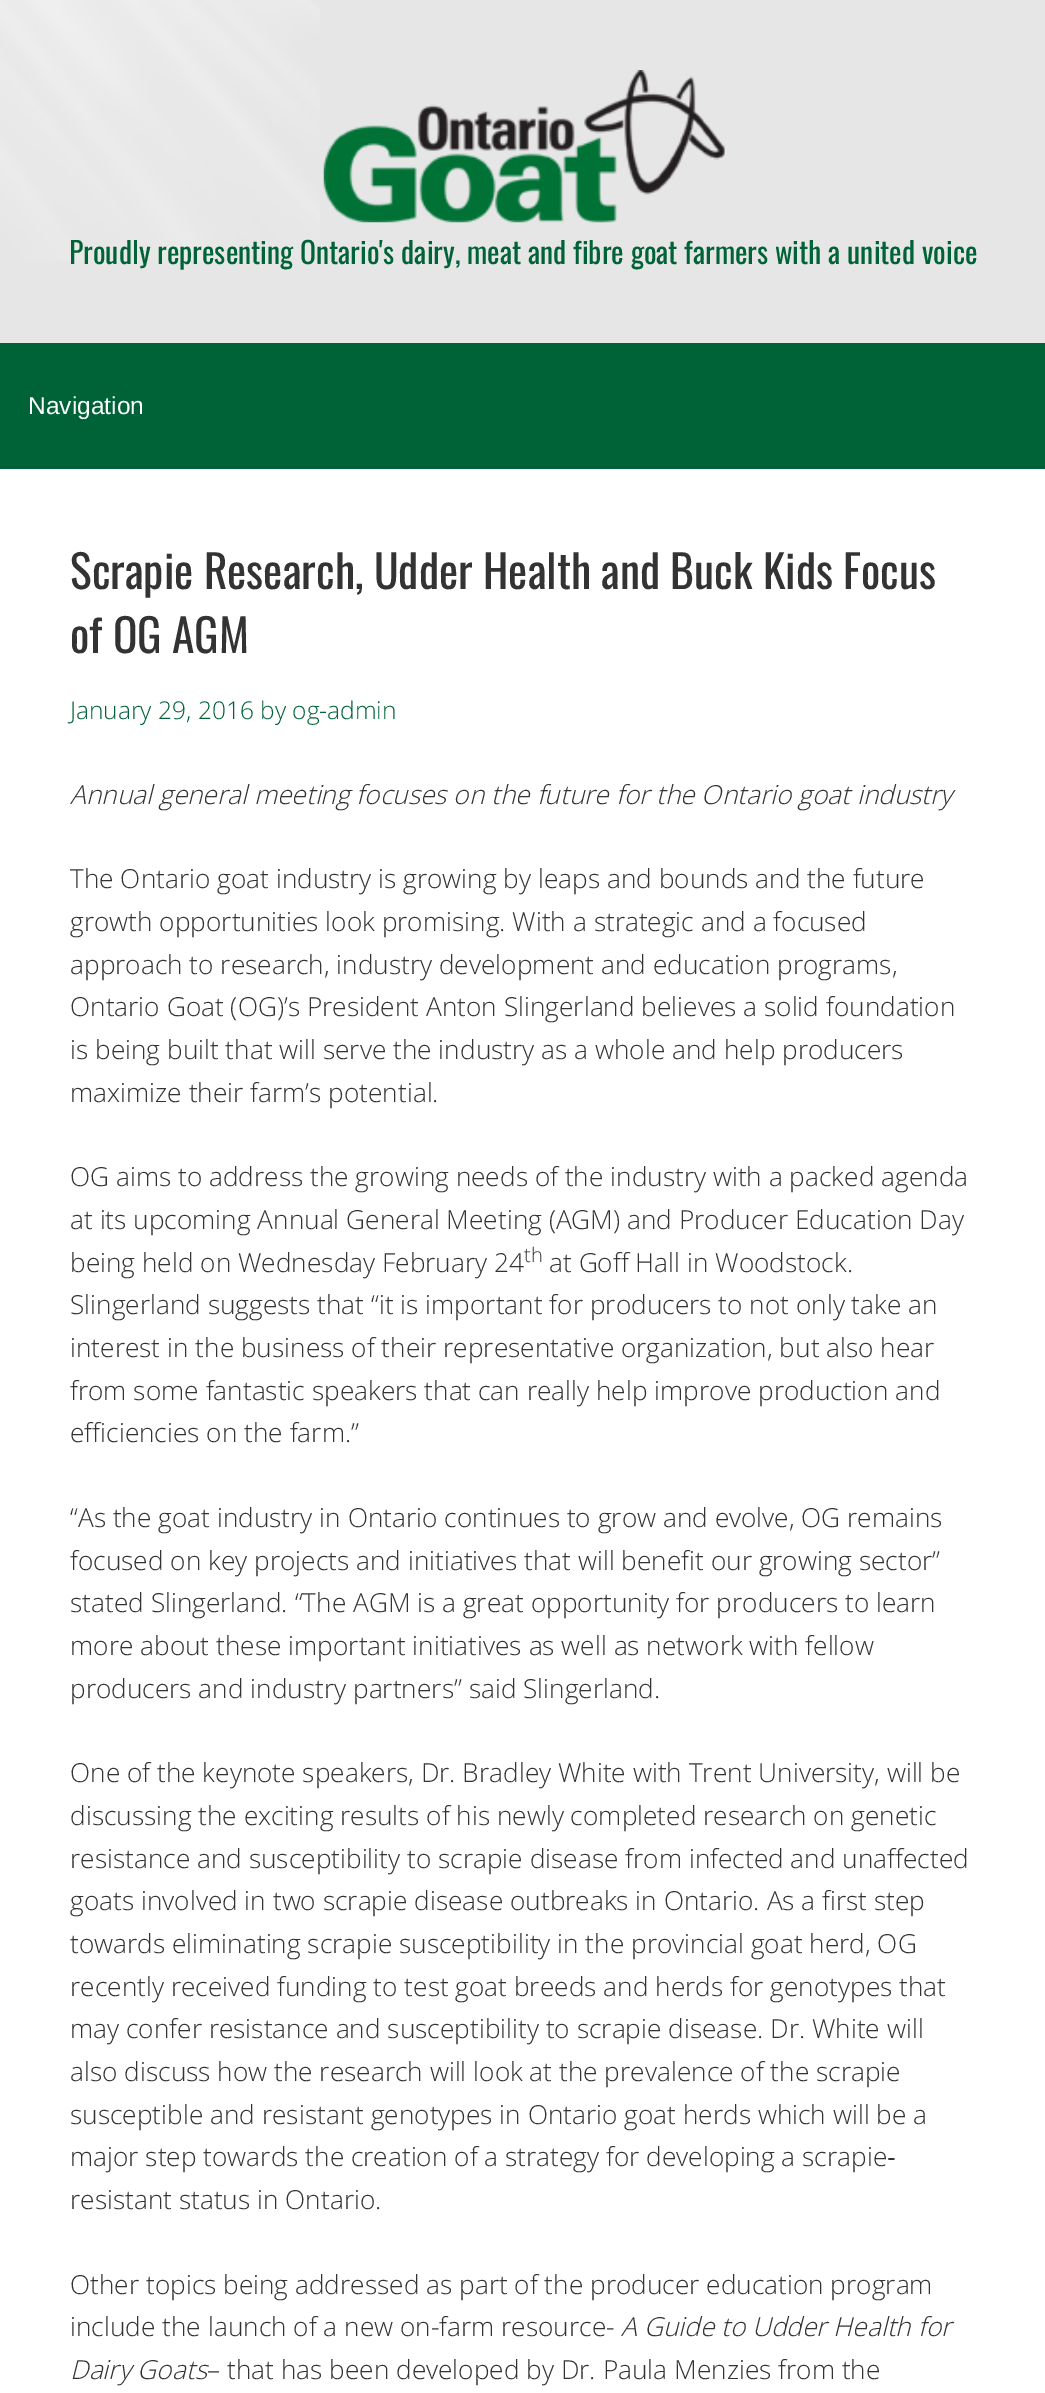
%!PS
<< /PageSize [1045 2393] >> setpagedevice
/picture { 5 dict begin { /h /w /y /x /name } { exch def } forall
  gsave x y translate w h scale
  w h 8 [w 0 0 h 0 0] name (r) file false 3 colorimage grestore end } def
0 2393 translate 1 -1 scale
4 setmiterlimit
0.902 setgray
0 0 1045 2393 rectfill
(img1.rgb) 0 0 320 261 picture
(img2.rgb) 323 70 402 153 picture
/Oswald-Regular [29.75 0 0 -29.75 0 0] selectfont
0 0.388 0.22 setrgbcolor
69 264 moveto (Proudly representing Ontario's dairy, meat and fibre goat farmers with a united voice) show
0 343 1045 126 rectfill
/LiberationSans-Regular [24.5 0 0 -24.5 0 0] selectfont
1 setgray
28 414 moveto (Navigation) show
0 469 1045 1924 rectfill
/Oswald-Regular [45.5 0 0 -45.5 0 0] selectfont
0.2 setgray
70 589 moveto (Scrapie Research, Udder Health and Buck Kids Focus) show
70 653 moveto (of OG AGM) show
/OpenSans-Light [24.5 0 0 -24.5 0 0] selectfont
0 0.388 0.22 setrgbcolor
70 719 moveto (January 29, 2016 by og-admin) show
/OpenSans-LightItalic [26.25 0 0 -26.25 0 0] selectfont
0.2 setgray
70 804 moveto (Annual general meeting focuses on the future for the Ontario goat industry) show
/OpenSans-Light [26.25 0 0 -26.25 0 0] selectfont
70 888 moveto (The Ontario goat industry is growing by leaps and bounds and the future) show
70 931 moveto (growth opportunities look promising. With a strategic and a focused) show
70 974 moveto (approach to research, industry development and education programs,) show
70 1016 moveto (Ontario Goat \(OG\)’s President Anton Slingerland believes a solid foundation) show
70 1059 moveto (is being built that will serve the industry as a whole and help producers) show
70 1102 moveto (maximize their farm’s potential.) show
70 1186 moveto (OG aims to address the growing needs of the industry with a packed agenda) show
70 1229 moveto (at its upcoming Annual General Meeting \(AGM\) and Producer Education Day) show
70 1272 moveto (being held on Wednesday February 24) show
/OpenSans-Light [20 0 0 -20 0 0] selectfont
524 1262 moveto (th) show
/OpenSans-Light [26.25 0 0 -26.25 0 0] selectfont
549 1272 moveto (at Goff Hall in Woodstock.) show
70 1314 moveto (Slingerland suggests that “it is important for producers to not only take an) show
70 1357 moveto (interest in the business of their representative organization, but also hear) show
70 1400 moveto (from some fantastic speakers that can really help improve production and) show
70 1442 moveto (efficiencies on the farm.”) show
70 1527 moveto (“As the goat industry in Ontario continues to grow and evolve, OG remains) show
70 1570 moveto (focused on key projects and initiatives that will benefit our growing sector”) show
70 1612 moveto (stated Slingerland. “The AGM is a great opportunity for producers to learn) show
70 1655 moveto (more about these important initiatives as well as network with fellow) show
70 1698 moveto (producers and industry partners” said Slingerland.) show
70 1782 moveto (One of the keynote speakers, Dr. Bradley White with Trent University, will be) show
70 1825 moveto (discussing the exciting results of his newly completed research on genetic) show
70 1868 moveto (resistance and susceptibility to scrapie disease from infected and unaffected) show
70 1910 moveto (goats involved in two scrapie disease outbreaks in Ontario. As a first step) show
70 1953 moveto (towards eliminating scrapie susceptibility in the provincial goat herd, OG) show
70 1996 moveto (recently received funding to test goat breeds and herds for genotypes that) show
70 2038 moveto (may confer resistance and susceptibility to scrapie disease. Dr. White will) show
70 2081 moveto (also discuss how the research will look at the prevalence of the scrapie) show
70 2124 moveto (susceptible and resistant genotypes in Ontario goat herds which will be a) show
70 2166 moveto (major step towards the creation of a strategy for developing a scrapie) show
/LiberationSans-Regular [26.25 0 0 -26.25 0 0] selectfont
887 2166 moveto (‐) show
/OpenSans-Light [26.25 0 0 -26.25 0 0] selectfont
70 2209 moveto (resistant status in Ontario.) show
70 2294 moveto (Other topics being addressed as part of the producer education program) show
70 2336 moveto (include the launch of a new on-farm resource-) show
/OpenSans-LightItalic [26.25 0 0 -26.25 0 0] selectfont
621 2336 moveto (A Guide to Udder Health for) show
70 2379 moveto (Dairy Goats) show
/OpenSans-Light [26.25 0 0 -26.25 0 0] selectfont
207 2379 moveto (– that has been developed by Dr. Paula Menzies from the) show
showpage
